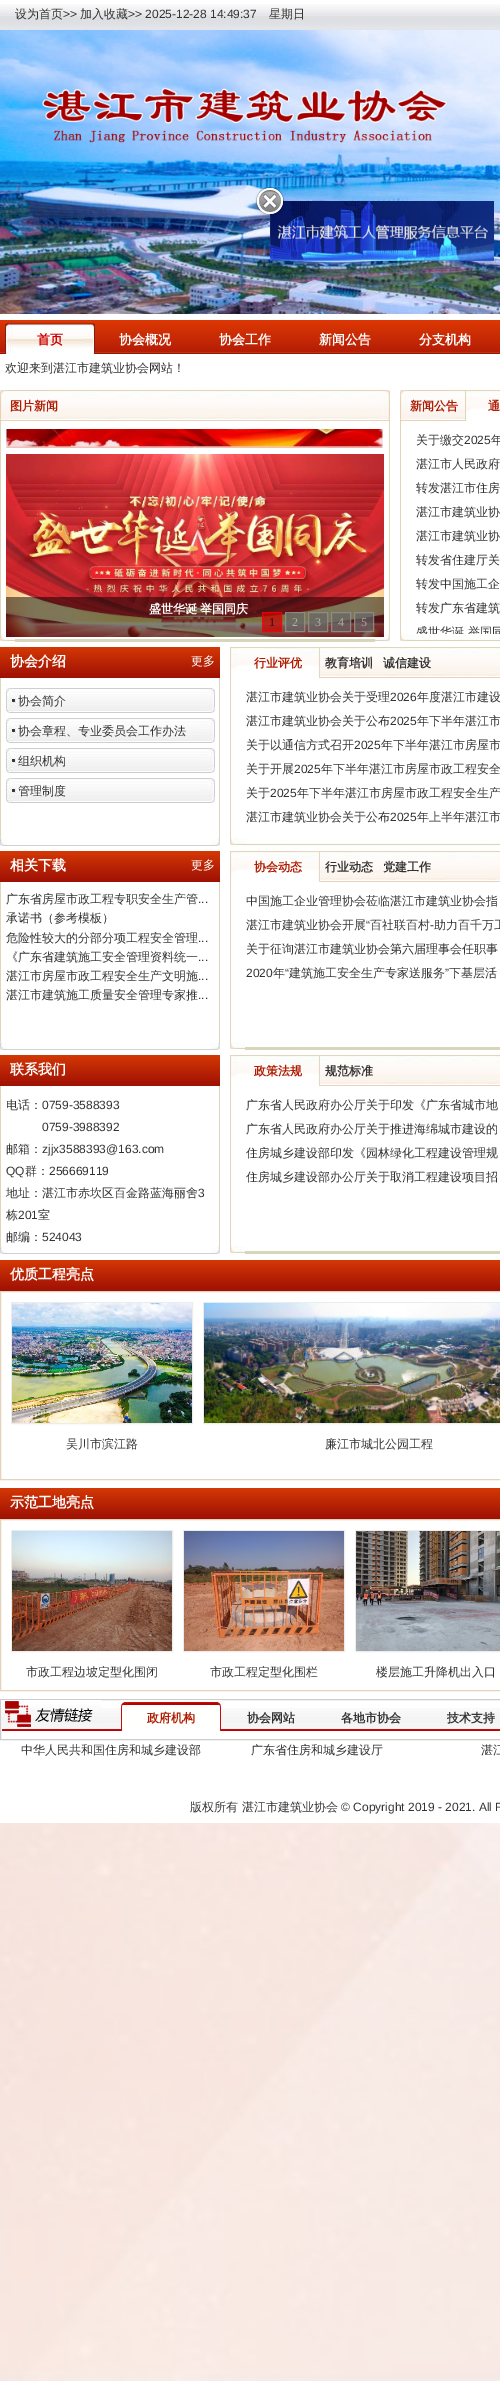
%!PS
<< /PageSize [500 2381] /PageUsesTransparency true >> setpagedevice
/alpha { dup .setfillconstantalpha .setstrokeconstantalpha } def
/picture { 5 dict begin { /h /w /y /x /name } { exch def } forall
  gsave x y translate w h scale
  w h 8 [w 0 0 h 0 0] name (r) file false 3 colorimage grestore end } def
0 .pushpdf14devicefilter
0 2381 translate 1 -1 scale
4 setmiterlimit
1 setgray
0 0 500 2381 rectfill
(img1.rgb) 0 1823 500 558 picture
(img2.rgb) 0 4 500 26 picture
/WenQuanYiZenHei-Medium [12 0 0 -12 0 0] selectfont
0.2 setgray
15 18 moveto (设为首页) show
/LiberationSans-Regular [12 0 0 -12 0 0] selectfont
63 18 moveto (>>) show
/WenQuanYiZenHei-Medium [12 0 0 -12 0 0] selectfont
80 18 moveto (加入收藏) show
/LiberationSans-Regular [12 0 0 -12 0 0] selectfont
128 18 moveto (>> 2025-12-28 14:49:37) show
/WenQuanYiZenHei-Medium [12 0 0 -12 0 0] selectfont
269 18 moveto (星期日) show
(img3.rgb) 0 30 500 284 picture
(img4.rgb) 0 320 500 34 picture
(img5.rgb) 5 320 90 34 picture
/WenQuanYiZenHei-Bold [13 0 0 -13 0 0] selectfont
0.8 0 0 setrgbcolor
37 344 moveto (首页) show
/WenQuanYiZenHei-Medium [12 0 0 -12 0 0] selectfont
0.2 setgray
5 372 moveto (欢迎来到湛江市建筑业协会网站！) show
/WenQuanYiZenHei-Bold [13 0 0 -13 0 0] selectfont
1 setgray
119 344 moveto (协会概况) show
219 344 moveto (协会工作) show
319 344 moveto (新闻公告) show
419 344 moveto (分支机构) show
(img6.rgb) 50 390 330 31 picture
(img7.rgb) 0 390 50 31 picture
/WenQuanYiZenHei-Bold [12 0 0 -12 0 0] selectfont
0.682 0.11 0.012 setrgbcolor
10 410 moveto (图片新闻) show
(img8.rgb) 380 390 10 31 picture
0.867 0.839 0.729 setrgbcolor
389 421 1 213 rectfill
0 421 1 213 rectfill
(img9.rgb) 6 429 377 19 picture
(img11.rgb) 0 634 15 8 picture
(img12.rgb) 375 634 15 8 picture
(img10.rgb) 6 454 378 183 picture
0.5 alpha
0 setgray
6 597 378 40 rectfill
1 alpha
1 setgray
149 613 moveto (盛世华诞) show
200 613 moveto (举国同庆) show
0.7 alpha
0.8 0 0 setrgbcolor
262 612 20 20 rectfill
1 0 0 setrgbcolor
262.5 612.5 19 19 rectstroke
/LiberationSerif-Regular [12 0 0 -12 0 0] selectfont
1 alpha
0.212 0.039 0.031 setrgbcolor
269 626 moveto (1) show
0.7 alpha
0.4 setgray
285 612 20 20 rectfill
0.6 setgray
285.5 612.5 19 19 rectstroke
1 alpha
0.69 0.682 0.675 setrgbcolor
292 626 moveto (2) show
0.7 alpha
0.4 setgray
308 612 20 20 rectfill
0.6 setgray
308.5 612.5 19 19 rectstroke
1 alpha
0.69 0.682 0.675 setrgbcolor
315 626 moveto (3) show
0.7 alpha
0.4 setgray
331 612 20 20 rectfill
0.6 setgray
331.5 612.5 19 19 rectstroke
1 alpha
0.69 0.682 0.675 setrgbcolor
338 626 moveto (4) show
0.7 alpha
0.4 setgray
354 612 20 20 rectfill
0.6 setgray
354.5 612.5 19 19 rectstroke
1 alpha
0.678 0.659 0.655 setrgbcolor
361 626 moveto (5) show
0.843 0.839 0.729 setrgbcolor
15 639 360 3 rectfill
(img13.rgb) 450 390 15 31 picture
(img7.rgb) 400 390 50 31 picture
/WenQuanYiZenHei-Bold [12 0 0 -12 0 0] selectfont
0.682 0.11 0.012 setrgbcolor
410 410 moveto (新闻公告) show
(img14.rgb) 465 390 35 31 picture
488 410 moveto (通) show
0.867 0.839 0.729 setrgbcolor
400 421 1 213 rectfill
/WenQuanYiZenHei-Medium [12 0 0 -12 0 0] selectfont
0.2 setgray
416 444 moveto (关于缴交) show
/LiberationSans-Regular [12 0 0 -12 0 0] selectfont
464 444 moveto (2025) show
/WenQuanYiZenHei-Medium [12 0 0 -12 0 0] selectfont
491 444 moveto (年) show
416 468 moveto (湛江市人民政府) show
416 492 moveto (转发湛江市住房) show
416 516 moveto (湛江市建筑业协) show
416 540 moveto (湛江市建筑业协) show
416 564 moveto (转发省住建厅关) show
416 588 moveto (转发中国施工企) show
416 612 moveto (转发广东省建筑) show
416 636 moveto (盛世华诞 举国同) show
(img15.rgb) 400 634 100 8 picture
(img16.rgb) 400 634 15 7 picture
(img17.rgb) 0 647 220 31 picture
/WenQuanYiZenHei-Bold [14 0 0 -14 0 0] selectfont
1 setgray
10 666 moveto (协会介绍) show
/WenQuanYiZenHei-Medium [12 0 0 -12 0 0] selectfont
191 665 moveto (更多) show
0.867 0.839 0.729 setrgbcolor
219 678 1 160 rectfill
0 678 1 160 rectfill
(img18.rgb) 6 688 209 25 picture
0.2 setgray
18 705 moveto (协会简介) show
(img18.rgb) 6 718 209 25 picture
18 735 moveto (协会章程、专业委员会工作办法) show
(img18.rgb) 6 748 209 25 picture
18 765 moveto (组织机构) show
(img18.rgb) 6 778 209 25 picture
18 795 moveto (管理制度) show
0.824 setgray
0 845 210 1 rectfill
(img19.rgb) 0 838 7 8 picture
(img20.rgb) 210 838 10 8 picture
(img21.rgb) 320 647 180 31 picture
(img22.rgb) 230 647 90 31 picture
/WenQuanYiZenHei-Bold [12 0 0 -12 0 0] selectfont
0.682 0.11 0.012 setrgbcolor
254 667 moveto (行业评优) show
0.2 setgray
325 667 moveto (教育培训) show
383 667 moveto (诚信建设) show
0.867 0.839 0.729 setrgbcolor
230 678 1 160 rectfill
/WenQuanYiZenHei-Medium [12 0 0 -12 0 0] selectfont
0.2 setgray
246 701 moveto (湛江市建筑业协会关于受理) show
/LiberationSans-Regular [12 0 0 -12 0 0] selectfont
390 701 moveto (2026) show
/WenQuanYiZenHei-Medium [12 0 0 -12 0 0] selectfont
417 701 moveto (年度湛江市建设) show
246 725 moveto (湛江市建筑业协会关于公布) show
/LiberationSans-Regular [12 0 0 -12 0 0] selectfont
390 725 moveto (2025) show
/WenQuanYiZenHei-Medium [12 0 0 -12 0 0] selectfont
417 725 moveto (年下半年湛江市) show
246 749 moveto (关于以通信方式召开) show
/LiberationSans-Regular [12 0 0 -12 0 0] selectfont
354 749 moveto (2025) show
/WenQuanYiZenHei-Medium [12 0 0 -12 0 0] selectfont
381 749 moveto (年下半年湛江市房屋市) show
246 773 moveto (关于开展) show
/LiberationSans-Regular [12 0 0 -12 0 0] selectfont
294 773 moveto (2025) show
/WenQuanYiZenHei-Medium [12 0 0 -12 0 0] selectfont
321 773 moveto (年下半年湛江市房屋市政工程安全) show
246 797 moveto (关于) show
/LiberationSans-Regular [12 0 0 -12 0 0] selectfont
270 797 moveto (2025) show
/WenQuanYiZenHei-Medium [12 0 0 -12 0 0] selectfont
297 797 moveto (年下半年湛江市房屋市政工程安全生产) show
246 821 moveto (湛江市建筑业协会关于公布) show
/LiberationSans-Regular [12 0 0 -12 0 0] selectfont
390 821 moveto (2025) show
/WenQuanYiZenHei-Medium [12 0 0 -12 0 0] selectfont
417 821 moveto (年上半年湛江市) show
(img23.rgb) 230 838 270 8 picture
(img16.rgb) 230 838 15 7 picture
(img17.rgb) 0 851 220 31 picture
/WenQuanYiZenHei-Bold [14 0 0 -14 0 0] selectfont
1 setgray
10 870 moveto (相关下载) show
/WenQuanYiZenHei-Medium [12 0 0 -12 0 0] selectfont
191 869 moveto (更多) show
0.867 0.839 0.729 setrgbcolor
219 882 1 160 rectfill
0 882 1 160 rectfill
0.2 setgray
6 903 moveto (广东省房屋市政工程专职安全生产管) show
/LiberationSans-Regular [12 0 0 -12 0 0] selectfont
198 903 moveto (...) show
/WenQuanYiZenHei-Medium [12 0 0 -12 0 0] selectfont
6 922 moveto (承诺书（参考模板）) show
6 942 moveto (危险性较大的分部分项工程安全管理) show
/LiberationSans-Regular [12 0 0 -12 0 0] selectfont
198 942 moveto (...) show
/WenQuanYiZenHei-Medium [12 0 0 -12 0 0] selectfont
6 961 moveto (《广东省建筑施工安全管理资料统一) show
/LiberationSans-Regular [12 0 0 -12 0 0] selectfont
198 961 moveto (...) show
/WenQuanYiZenHei-Medium [12 0 0 -12 0 0] selectfont
6 980 moveto (湛江市房屋市政工程安全生产文明施) show
/LiberationSans-Regular [12 0 0 -12 0 0] selectfont
198 980 moveto (...) show
/WenQuanYiZenHei-Medium [12 0 0 -12 0 0] selectfont
6 999 moveto (湛江市建筑施工质量安全管理专家推) show
/LiberationSans-Regular [12 0 0 -12 0 0] selectfont
198 999 moveto (...) show
0.824 setgray
0 1049 210 1 rectfill
(img19.rgb) 0 1042 7 8 picture
(img20.rgb) 210 1042 10 8 picture
(img21.rgb) 320 851 180 31 picture
(img22.rgb) 230 851 90 31 picture
/WenQuanYiZenHei-Bold [12 0 0 -12 0 0] selectfont
0.682 0.11 0.012 setrgbcolor
254 871 moveto (协会动态) show
0.2 setgray
325 871 moveto (行业动态) show
383 871 moveto (党建工作) show
0.867 0.839 0.729 setrgbcolor
230 882 1 160 rectfill
/WenQuanYiZenHei-Medium [12 0 0 -12 0 0] selectfont
0.2 setgray
246 905 moveto (中国施工企业管理协会莅临湛江市建筑业协会指) show
246 929 moveto (湛江市建筑业协会开展) show
/LiberationSans-Regular [12 0 0 -12 0 0] selectfont
366 929 moveto (“) show
/WenQuanYiZenHei-Medium [12 0 0 -12 0 0] selectfont
370 929 moveto (百社联百村) show
434 929 moveto (助力百千万工) show
/LiberationSans-Regular [12 0 0 -12 0 0] selectfont
430 929 moveto (-) show
/WenQuanYiZenHei-Medium [12 0 0 -12 0 0] selectfont
246 953 moveto (关于征询湛江市建筑业协会第六届理事会任职事) show
/LiberationSans-Regular [12 0 0 -12 0 0] selectfont
246 977 moveto (2020) show
/WenQuanYiZenHei-Medium [12 0 0 -12 0 0] selectfont
273 977 moveto (年) show
/LiberationSans-Regular [12 0 0 -12 0 0] selectfont
285 977 moveto (“) show
/WenQuanYiZenHei-Medium [12 0 0 -12 0 0] selectfont
289 977 moveto (建筑施工安全生产专家送服务) show
/LiberationSans-Regular [12 0 0 -12 0 0] selectfont
445 977 moveto (”) show
/WenQuanYiZenHei-Medium [12 0 0 -12 0 0] selectfont
449 977 moveto (下基层活) show
0.843 0.839 0.729 setrgbcolor
245 1047 255 3 rectfill
(img11.rgb) 230 1042 15 8 picture
(img17.rgb) 0 1055 220 31 picture
/WenQuanYiZenHei-Bold [14 0 0 -14 0 0] selectfont
1 setgray
10 1074 moveto (联系我们) show
0.867 0.839 0.729 setrgbcolor
219 1086 1 160 rectfill
0 1086 1 160 rectfill
/WenQuanYiZenHei-Medium [12 0 0 -12 0 0] selectfont
0.2 setgray
6 1109 moveto (电话：) show
/LiberationSans-Regular [12 0 0 -12 0 0] selectfont
42 1109 moveto (0759-3588393) show
42 1131 moveto (0759-3988392) show
/WenQuanYiZenHei-Medium [12 0 0 -12 0 0] selectfont
6 1153 moveto (邮箱：) show
/LiberationSans-Regular [12 0 0 -12 0 0] selectfont
42 1153 moveto (zjjx3588393@163.com) show
6 1175 moveto (QQ) show
/WenQuanYiZenHei-Medium [12 0 0 -12 0 0] selectfont
25 1175 moveto (群：) show
/LiberationSans-Regular [12 0 0 -12 0 0] selectfont
49 1175 moveto (256669119) show
/WenQuanYiZenHei-Medium [12 0 0 -12 0 0] selectfont
6 1197 moveto (地址：湛江市赤坎区百金路蓝海丽舍) show
/LiberationSans-Regular [12 0 0 -12 0 0] selectfont
198 1197 moveto (3) show
/WenQuanYiZenHei-Medium [12 0 0 -12 0 0] selectfont
6 1219 moveto (栋) show
/LiberationSans-Regular [12 0 0 -12 0 0] selectfont
18 1219 moveto (201) show
/WenQuanYiZenHei-Medium [12 0 0 -12 0 0] selectfont
38 1219 moveto (室) show
6 1241 moveto (邮编：) show
/LiberationSans-Regular [12 0 0 -12 0 0] selectfont
42 1241 moveto (524043) show
0.824 setgray
0 1253 210 1 rectfill
(img19.rgb) 0 1246 7 8 picture
(img20.rgb) 210 1246 10 8 picture
(img21.rgb) 320 1055 180 31 picture
(img22.rgb) 230 1055 90 31 picture
/WenQuanYiZenHei-Bold [12 0 0 -12 0 0] selectfont
0.682 0.11 0.012 setrgbcolor
254 1075 moveto (政策法规) show
0.2 setgray
325 1075 moveto (规范标准) show
0.867 0.839 0.729 setrgbcolor
230 1086 1 160 rectfill
/WenQuanYiZenHei-Medium [12 0 0 -12 0 0] selectfont
0.2 setgray
246 1109 moveto (广东省人民政府办公厅关于印发《广东省城市地) show
246 1133 moveto (广东省人民政府办公厅关于推进海绵城市建设的) show
246 1157 moveto (住房城乡建设部印发《园林绿化工程建设管理规) show
246 1181 moveto (住房城乡建设部办公厅关于取消工程建设项目招) show
0.843 0.839 0.729 setrgbcolor
245 1251 255 3 rectfill
(img11.rgb) 230 1246 15 8 picture
(img24.rgb) 0 1260 500 31 picture
/WenQuanYiZenHei-Bold [14 0 0 -14 0 0] selectfont
1 setgray
10 1279 moveto (优质工程亮点) show
0.902 0.824 0.725 setrgbcolor
0.5 1291.5 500 188 rectstroke
0.925 setgray
11.5 1302.5 181 121 rectstroke
(img25.rgb) 12 1303 180 120 picture
/WenQuanYiZenHei-Medium [12 0 0 -12 0 0] selectfont
0.2 setgray
66 1448 moveto (吴川市滨江路) show
0.925 setgray
203.5 1302.5 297 121 rectstroke
(img26.rgb) 204 1303 296 120 picture
0.2 setgray
325 1448 moveto (廉江市城北公园工程) show
(img24.rgb) 0 1488 500 31 picture
/WenQuanYiZenHei-Bold [14 0 0 -14 0 0] selectfont
1 setgray
10 1507 moveto (示范工地亮点) show
0.902 0.824 0.725 setrgbcolor
0.5 1519.5 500 171 rectstroke
0.925 setgray
11.5 1530.5 161 121 rectstroke
(img27.rgb) 12 1531 160 120 picture
/WenQuanYiZenHei-Medium [12 0 0 -12 0 0] selectfont
0.2 setgray
26 1676 moveto (市政工程边坡定型化围闭) show
0.925 setgray
183.5 1530.5 161 121 rectstroke
(img28.rgb) 184 1531 160 120 picture
0.2 setgray
210 1676 moveto (市政工程定型化围栏) show
0.925 setgray
355.5 1530.5 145 121 rectstroke
(img29.rgb) 356 1531 144 120 picture
0.2 setgray
376 1676 moveto (楼层施工升降机出入口) show
0.8 setgray
0.5 1699.5 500 40 rectstroke
(img30.rgb) 101 1708 399 23 picture
(img31.rgb) 1 1700 100 31 picture
(img32.rgb) 121 1700 100 31 picture
/WenQuanYiZenHei-Bold [12 0 0 -12 0 0] selectfont
0.682 0.11 0.012 setrgbcolor
147 1722 moveto (政府机构) show
0.2 setgray
247 1722 moveto (协会网站) show
341 1722 moveto (各地市协会) show
447 1722 moveto (技术支持) show
/WenQuanYiZenHei-Medium [12 0 0 -12 0 0] selectfont
21 1754 moveto (中华人民共和国住房和城乡建设部) show
251 1754 moveto (广东省住房和城乡建设厅) show
481 1754 moveto (湛江) show
190 1811 moveto (版权所有 湛江市建筑业协会) show
/LiberationSans-Regular [12 0 0 -12 0 0] selectfont
341 1811 moveto (© Copyright 2019 - 2021. All R) show
(img34.rgb) 270 201 224 60 picture
(img33.rgb) 255 187 30 31 picture
.poppdf14devicefilter showpage
